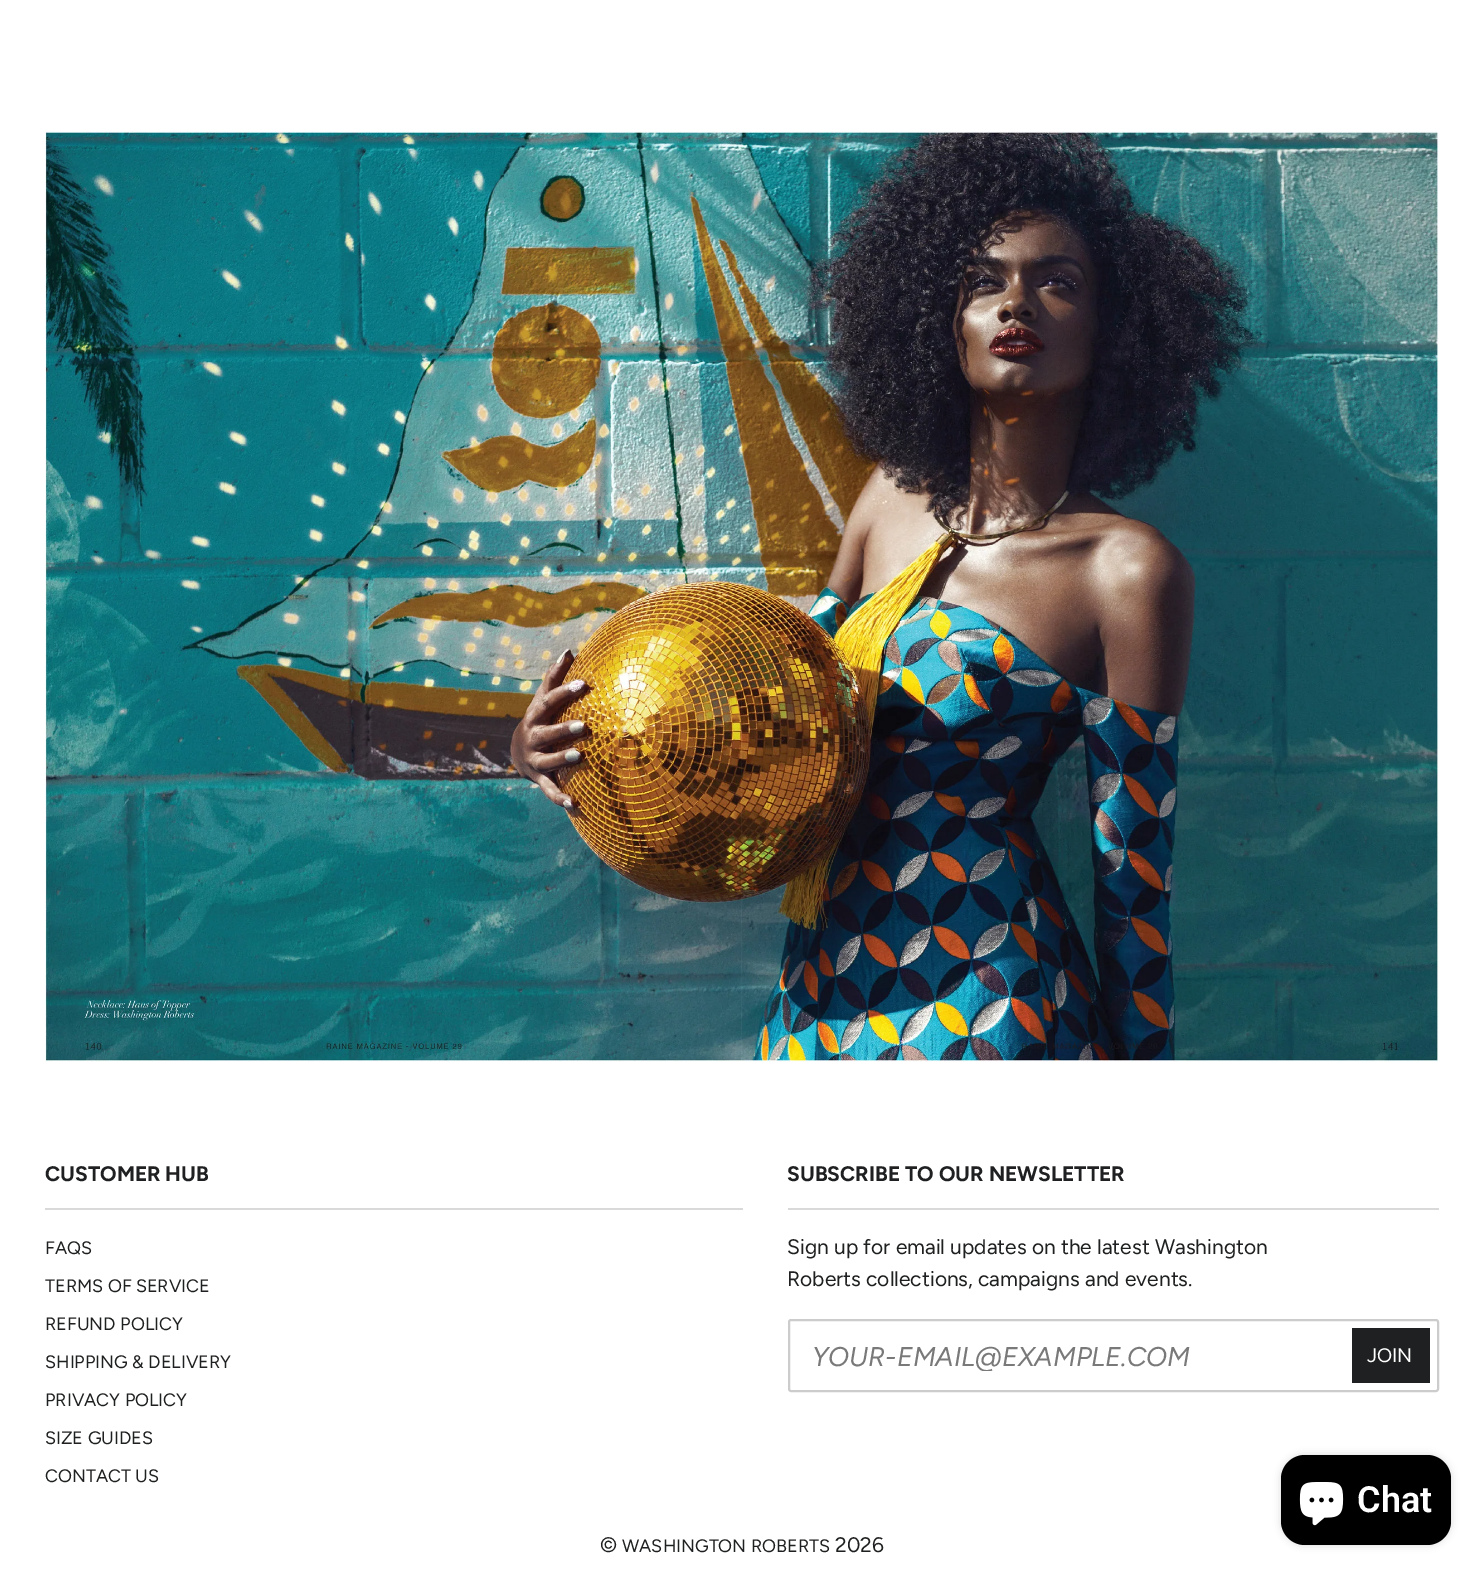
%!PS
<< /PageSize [1483 1576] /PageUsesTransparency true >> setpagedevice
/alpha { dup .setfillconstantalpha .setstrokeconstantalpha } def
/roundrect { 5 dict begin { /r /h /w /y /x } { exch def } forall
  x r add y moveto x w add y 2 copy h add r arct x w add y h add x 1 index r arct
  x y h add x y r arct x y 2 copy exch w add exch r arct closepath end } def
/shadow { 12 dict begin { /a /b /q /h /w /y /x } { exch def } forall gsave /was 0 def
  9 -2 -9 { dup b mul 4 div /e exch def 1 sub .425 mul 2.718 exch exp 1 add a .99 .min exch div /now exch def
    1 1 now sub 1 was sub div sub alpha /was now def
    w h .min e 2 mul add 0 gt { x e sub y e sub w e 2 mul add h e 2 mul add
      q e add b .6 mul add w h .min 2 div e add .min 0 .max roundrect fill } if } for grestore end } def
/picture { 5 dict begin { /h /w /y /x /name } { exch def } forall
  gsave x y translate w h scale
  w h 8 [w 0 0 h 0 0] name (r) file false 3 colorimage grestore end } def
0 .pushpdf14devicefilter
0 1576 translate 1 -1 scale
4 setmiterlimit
1 setgray
0 0 1483 1576 rectfill
(img1.rgb) 45 131 1394 931 picture
0.851 setgray
45 1208 698 2 rectfill
/Figtree-Bold [21 0 0 -21 0 0] selectfont
0.122 0.125 0.129 setrgbcolor
45 1181 moveto (CUSTOMER HUB) show
/Figtree-Regular [18 0 0 -18 0 0] selectfont
45 1254 moveto (FAQS) show
45 1292 moveto (TERMS OF SERVICE) show
45 1330 moveto (REFUND POLICY) show
45 1368 moveto (SHIPPING & DELIVERY) show
45 1406 moveto (PRIVACY POLICY) show
45 1444 moveto (SIZE GUIDES) show
45 1482 moveto (CONTACT US) show
0.851 setgray
788 1208 651 2 rectfill
/Figtree-Bold [21 0 0 -21 0 0] selectfont
0.122 0.125 0.129 setrgbcolor
787 1181 moveto (SUBSCRIBE TO OUR NEWSLETTER) show
/Figtree-Regular [21 0 0 -21 0 0] selectfont
787 1254 moveto (Sign up for email updates on the latest Washington) show
787 1286 moveto (Roberts collections, campaigns and events.) show
0.8 setgray
2 setlinewidth
789 1320 649 71 2 roundrect stroke
gsave
813 1340 522 31 rectclip
/Figtree-Italic [27 0 0 -27 0 0] selectfont
0.475 0.475 0.478 setrgbcolor
812 1366 moveto (YOUR-EMAIL@EXAMPLE.COM) show
grestore
0.122 0.125 0.129 setrgbcolor
1352 1328 78 55 rectfill
/Figtree-Regular [19.5 0 0 -19.5 0 0] selectfont
1 setgray
1367 1362 moveto (JOIN) show
/Figtree-Regular [21 0 0 -21 0 0] selectfont
0.122 0.125 0.129 setrgbcolor
600 1552 moveto (©) show
/Figtree-Regular [18 0 0 -18 0 0] selectfont
622 1552 moveto (WASHINGTON ROBERTS) show
/Figtree-Regular [21 0 0 -21 0 0] selectfont
835 1552 moveto (2026) show
0 setgray
1281 1455 170 90 24 4 0.15 shadow
1281 1455 170 90 24 roundrect fill
(img2.rgb) 1299 1482 45 44 picture
/Roboto-SemiBold [36 0 0 -36 0 0] selectfont
1 setgray
1357 1512 moveto (Chat) show
.poppdf14devicefilter showpage
